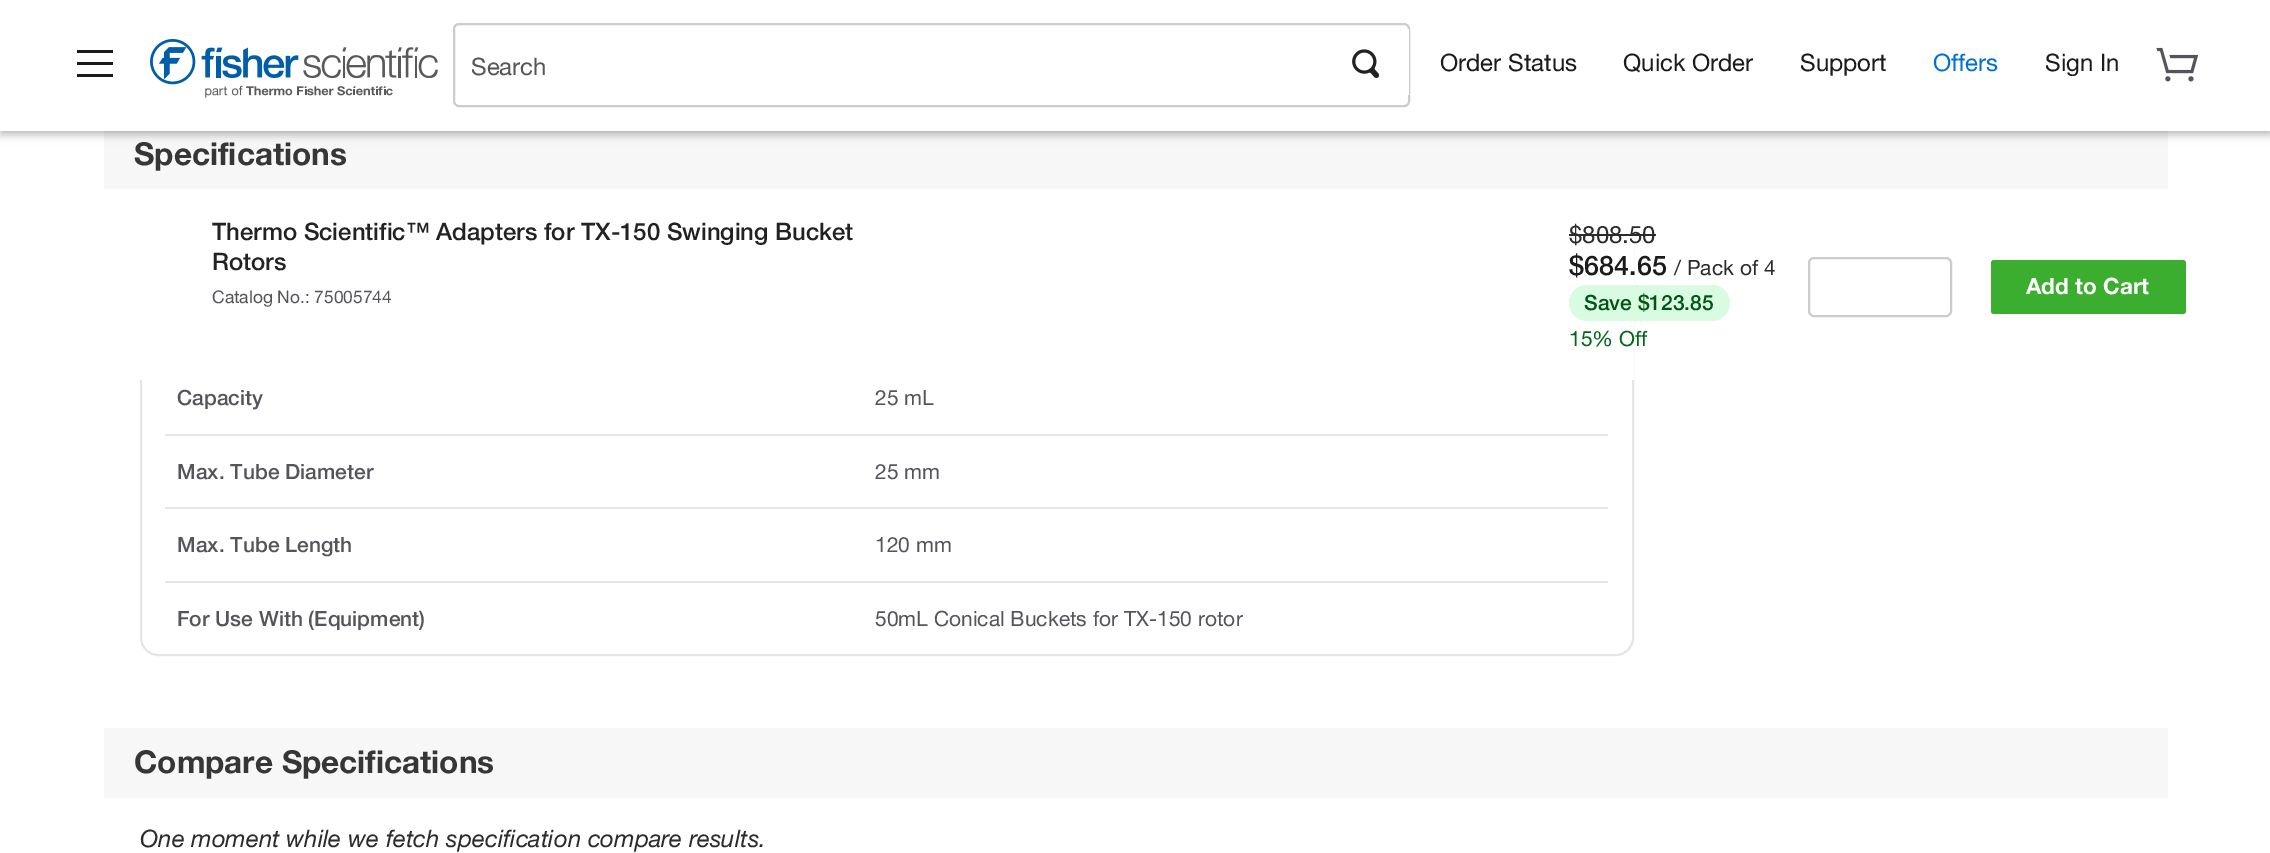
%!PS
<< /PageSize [2270 853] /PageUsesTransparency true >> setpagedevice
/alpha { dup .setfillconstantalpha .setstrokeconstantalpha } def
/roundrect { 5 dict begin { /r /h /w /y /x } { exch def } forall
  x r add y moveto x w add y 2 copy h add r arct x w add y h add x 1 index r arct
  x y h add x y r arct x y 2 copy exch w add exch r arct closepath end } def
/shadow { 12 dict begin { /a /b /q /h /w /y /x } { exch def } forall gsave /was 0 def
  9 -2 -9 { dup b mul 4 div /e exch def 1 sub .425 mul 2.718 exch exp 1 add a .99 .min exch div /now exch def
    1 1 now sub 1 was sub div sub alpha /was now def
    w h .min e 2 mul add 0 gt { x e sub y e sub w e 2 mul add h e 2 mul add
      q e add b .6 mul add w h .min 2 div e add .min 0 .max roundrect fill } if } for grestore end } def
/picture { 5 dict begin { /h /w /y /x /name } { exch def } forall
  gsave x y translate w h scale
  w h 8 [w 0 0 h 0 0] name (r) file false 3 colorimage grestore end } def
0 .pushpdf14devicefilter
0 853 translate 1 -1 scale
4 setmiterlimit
1 setgray
0 0 2270 853 rectfill
0.969 setgray
104 131 2064 58 rectfill
0 setgray
0 6 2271 131 0 4 0.14 shadow
2 5 2268 127 0 3 0.2 shadow
1 setgray
0 0 2270 131 rectfill
0.106 0.106 0.114 setrgbcolor
77 62 36 3 rectfill
77 50 36 3 rectfill
77 74 36 3 rectfill
(img1.rgb) 150 39 288 59 picture
0.8 setgray
2 setlinewidth
454 24 955 82 5 roundrect stroke
/HelveticaNeue-Regular [24 0 0 -24 0 0] selectfont
0.337 setgray
471 75 moveto (Search) show
1 setgray
1408 29 1 66 rectfill
(img2.rgb) 1352 49 28 29 picture
0.106 0.106 0.114 setrgbcolor
1440 71 moveto (Order Status) show
1623 71 moveto (Quick Order) show
1800 71 moveto (Support) show
0 0.443 0.816 setrgbcolor
1933 71 moveto (Offers) show
0.106 0.106 0.114 setrgbcolor
2045 71 moveto (Sign In) show
(img3.rgb) 2156 47 43 35 picture
/HelveticaNeue-Bold [31.5 0 0 -31.5 0 0] selectfont
0.212 setgray
134 165 moveto (Specifications) show
0.898 setgray
141 214 1492 441 17 roundrect stroke
/HelveticaNeue-Medium [21 0 0 -21 0 0] selectfont
0.329 0.329 0.361 setrgbcolor
177 405 moveto (Capacity) show
/HelveticaNeue-Regular [21 0 0 -21 0 0] selectfont
875 405 moveto (25 mL) show
0.898 setgray
165 434 1443 2 rectfill
/HelveticaNeue-Medium [21 0 0 -21 0 0] selectfont
0.329 0.329 0.361 setrgbcolor
177 479 moveto (Max. Tube Diameter) show
/HelveticaNeue-Regular [21 0 0 -21 0 0] selectfont
875 479 moveto (25 mm) show
0.898 setgray
165 507 1443 2 rectfill
/HelveticaNeue-Medium [21 0 0 -21 0 0] selectfont
0.329 0.329 0.361 setrgbcolor
177 552 moveto (Max. Tube Length) show
/HelveticaNeue-Regular [21 0 0 -21 0 0] selectfont
875 552 moveto (120 mm) show
0.898 setgray
165 581 1443 2 rectfill
/HelveticaNeue-Medium [21 0 0 -21 0 0] selectfont
0.329 0.329 0.361 setrgbcolor
177 626 moveto (For Use With \(Equipment\)) show
/HelveticaNeue-Regular [21 0 0 -21 0 0] selectfont
875 626 moveto (50mL Conical Buckets for TX-150 rotor) show
0.969 setgray
104 728 2064 70 rectfill
/HelveticaNeue-Bold [31.5 0 0 -31.5 0 0] selectfont
0.212 setgray
134 773 moveto (Compare Specifications) show
/HelveticaNeue-Italic [24 0 0 -24 0 0] selectfont
0.169 setgray
140 847 moveto (One moment while we fetch specification compare results.) show
1 setgray
140 213 1494 167 rectfill
/HelveticaNeue-Medium [24 0 0 -24 0 0] selectfont
0.133 setgray
212 240 moveto (Thermo Scientific™ Adapters for TX-150 Swinging Bucket) show
212 270 moveto (Rotors) show
/HelveticaNeue-Regular [17.4 0 0 -17.4 0 0] selectfont
0.329 0.329 0.361 setrgbcolor
212 303 moveto (Catalog No.: 75005744) show
/HelveticaNeue-Regular [24 0 0 -24 0 0] selectfont
0.169 setgray
1569 243 moveto ($808.50) show
1569 234 87 2 rectfill
/HelveticaNeue-Medium [27 0 0 -27 0 0] selectfont
0.106 0.106 0.114 setrgbcolor
1569 275 moveto ($684.65) show
/HelveticaNeue-Regular [21 0 0 -21 0 0] selectfont
0.169 setgray
1674 275 moveto (/ Pack of 4) show
0.851 0.984 0.886 setrgbcolor
1569 285 161 36 18 roundrect fill
/HelveticaNeue-Medium [21 0 0 -21 0 0] selectfont
0 0.333 0.071 setrgbcolor
1584 310 moveto (Save $123.85) show
/HelveticaNeue-Regular [21 0 0 -21 0 0] selectfont
0 0.408 0.086 setrgbcolor
1569 346 moveto (15% Off) show
0.8 setgray
1809 258 142 58 5 roundrect stroke
0.231 0.678 0.184 setrgbcolor
1991 260 195 54 3 roundrect fill
/HelveticaNeue-Bold [22.5 0 0 -22.5 0 0] selectfont
1 setgray
2026 294 moveto (Add to Cart) show
.poppdf14devicefilter showpage
